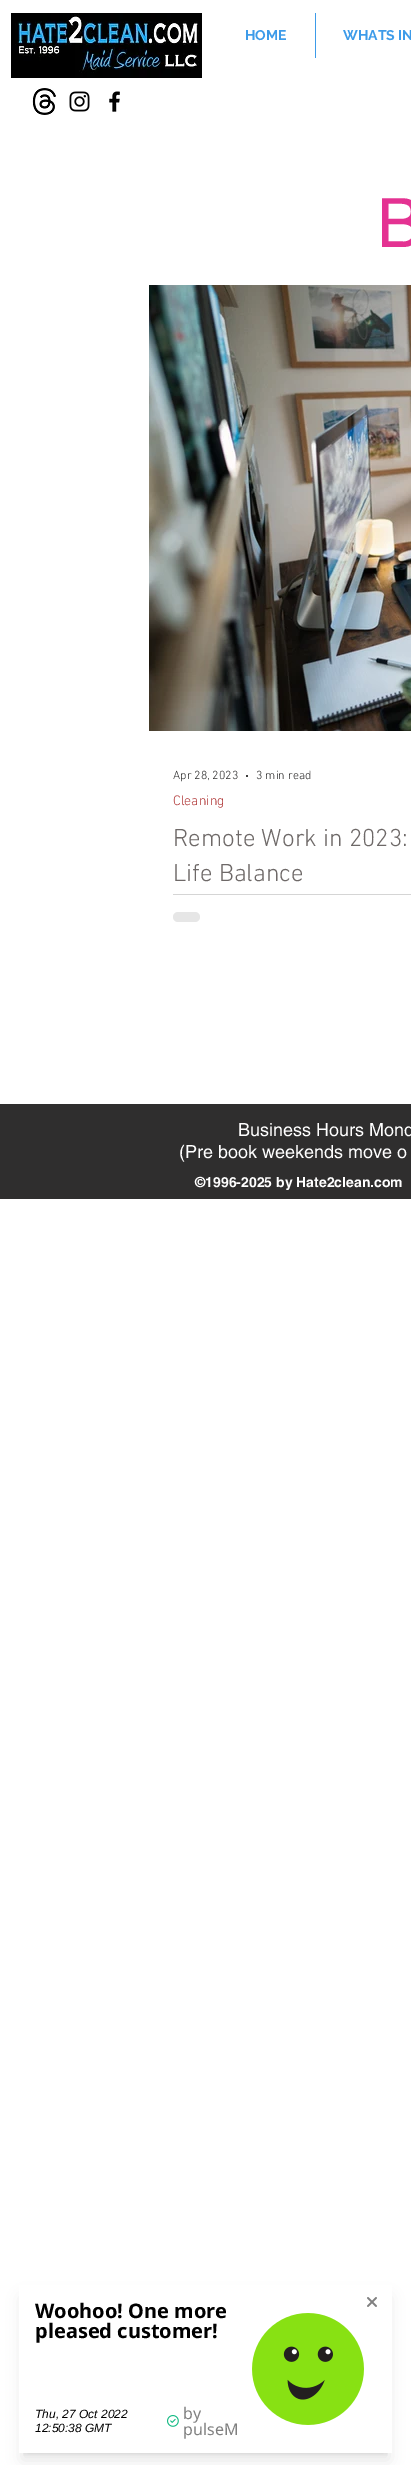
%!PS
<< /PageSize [411 2465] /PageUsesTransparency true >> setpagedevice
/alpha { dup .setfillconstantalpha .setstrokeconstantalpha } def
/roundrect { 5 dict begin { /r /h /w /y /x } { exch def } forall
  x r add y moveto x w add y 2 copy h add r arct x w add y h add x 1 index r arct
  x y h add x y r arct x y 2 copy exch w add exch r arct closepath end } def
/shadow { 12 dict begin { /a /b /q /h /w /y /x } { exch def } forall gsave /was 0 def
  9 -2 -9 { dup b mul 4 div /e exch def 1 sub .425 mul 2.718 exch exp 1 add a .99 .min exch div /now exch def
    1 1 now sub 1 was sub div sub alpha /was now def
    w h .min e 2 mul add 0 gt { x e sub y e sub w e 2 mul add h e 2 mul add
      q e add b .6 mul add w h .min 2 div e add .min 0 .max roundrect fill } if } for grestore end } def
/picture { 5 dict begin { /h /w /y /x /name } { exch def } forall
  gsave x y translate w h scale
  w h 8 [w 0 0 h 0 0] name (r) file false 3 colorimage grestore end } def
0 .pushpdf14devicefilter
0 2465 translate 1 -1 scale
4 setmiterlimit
1 setgray
0 0 411 2465 rectfill
(img1.rgb) 11 13 191 65 picture
/Raleway-Bold [14 0 0 -14 0 0] selectfont
0.239 0.608 0.914 setrgbcolor
245 40 moveto (HOME) show
315 13 1 45 rectfill
343 40 moveto (WHATS IN) show
(img2.rgb) 32 88 24 27 picture
(img3.rgb) 69 91 21 21 picture
(img4.rgb) 109 91 11 21 picture
/helvetica-Regular [68 0 0 -68 0 0] selectfont
0.894 0.196 0.573 setrgbcolor
377 247 moveto (B) show
(img5.rgb) 149 285 262 446 picture
/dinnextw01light-Light [12 0 0 -12 0 0] selectfont
0.184 0.18 0.18 setrgbcolor
173 779 moveto (Apr 28, 2023) show
newpath 247 776 1 0 360 arc closepath fill
256 779 moveto (3 min read) show
/dinnextw01light-Light [14 0 0 -14 0 0] selectfont
0.69 0.216 0.216 setrgbcolor
173 805 moveto (Cleaning) show
/dinnextw01light-Light [25 0 0 -25 0 0] selectfont
0.431 0.412 0.408 setrgbcolor
173 846 moveto (Remote Work in 2023:) show
173 881 moveto (Life Balance) show
0.835 setgray
173 894 238 1 rectfill
0.902 setgray
173 912 27 10 5 roundrect fill
0.184 0.18 0.18 setrgbcolor
0 1104 411 95 rectfill
/helvetica-Regular [18 0 0 -18 0 0] selectfont
1 setgray
238 1136 moveto (Business Hours Mond) show
179 1158 moveto (\(Pre book weekends move o) show
/helvetica-Bold [14 0 0 -14 0 0] selectfont
195 1187 moveto (©1996-2025 by Hate2clean.com) show
gsave
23 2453 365 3 rectclip
0 setgray
23 2293 365 160 0 3 0.1 shadow
grestore
gsave
newpath 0 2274 moveto 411 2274 lineto 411 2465 lineto 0 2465 lineto closepath 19 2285 moveto 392 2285 lineto 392 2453 lineto 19 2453 lineto closepath eoclip newpath
0 setgray
22 2298 367 162 0 7.5 0.1 shadow
grestore
/NotoSans-Bold [20 0 0 -20 0 0] selectfont
0 setgray
35 2318 moveto (Woohoo! One more) show
35 2338 moveto (pleased customer!) show
/LiberationSans-Italic [12 0 0 -12 0 0] selectfont
35 2418 moveto (Thu, 27 Oct 2022) show
35 2432 moveto (12:50:38 GMT) show
(img6.rgb) 167 2415 12 12 picture
/NotoSans-Regular [16 0 0 -16 0 0] selectfont
0.502 setgray
183 2419 moveto (by) show
183 2435 moveto (pulseM) show
(img7.rgb) 252 2313 112 112 picture
(img8.rgb) 367 2297 10 10 picture
.poppdf14devicefilter showpage
